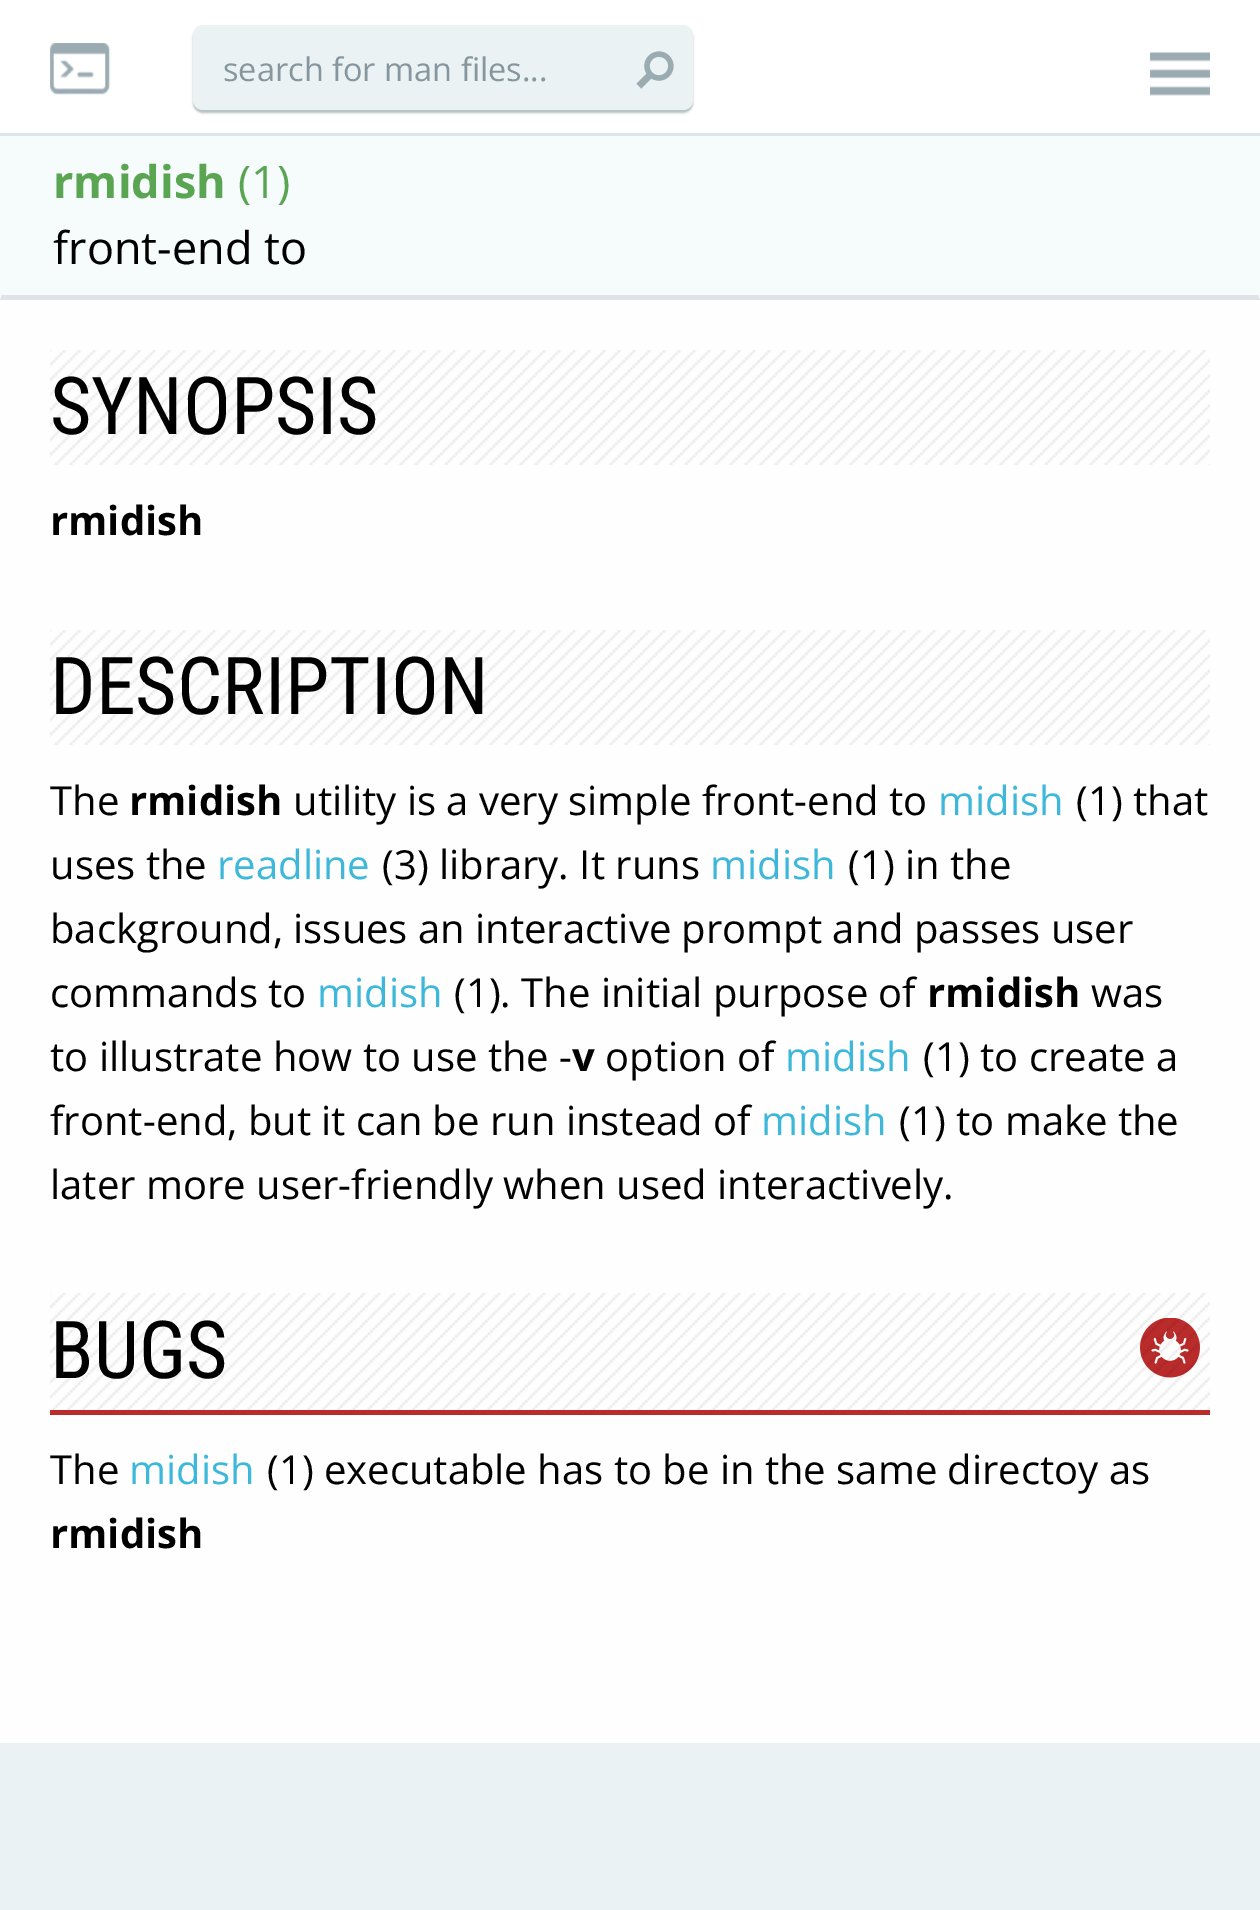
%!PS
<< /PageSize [1260 1910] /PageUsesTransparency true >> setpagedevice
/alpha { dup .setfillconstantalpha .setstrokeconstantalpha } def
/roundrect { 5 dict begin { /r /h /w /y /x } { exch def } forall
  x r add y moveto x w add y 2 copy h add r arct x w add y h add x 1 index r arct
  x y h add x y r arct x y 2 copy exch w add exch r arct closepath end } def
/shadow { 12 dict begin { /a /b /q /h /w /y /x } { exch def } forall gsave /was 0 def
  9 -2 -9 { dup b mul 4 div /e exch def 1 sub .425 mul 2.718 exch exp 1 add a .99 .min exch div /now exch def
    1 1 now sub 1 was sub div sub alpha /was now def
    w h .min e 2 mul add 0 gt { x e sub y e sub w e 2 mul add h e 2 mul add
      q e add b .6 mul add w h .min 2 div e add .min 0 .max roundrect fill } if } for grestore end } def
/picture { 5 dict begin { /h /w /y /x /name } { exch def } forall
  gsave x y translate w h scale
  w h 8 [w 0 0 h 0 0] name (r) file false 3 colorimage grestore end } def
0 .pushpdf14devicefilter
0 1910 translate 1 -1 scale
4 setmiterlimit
0.918 0.949 0.957 setrgbcolor
0 0 1260 1910 rectfill
1 setgray
0 0 1260 133 rectfill
0.863 0.898 0.906 setrgbcolor
0 133 1260 3 rectfill
(img1.rgb) 50 43 61 52 picture
0.024 0.184 0.216 setrgbcolor
193 28 500 85 10 1 0.3 shadow
0.918 0.949 0.957 setrgbcolor
193 25 500 85 10 roundrect fill
/OpenSans-Regular [32.5 0 0 -32.5 0 0] selectfont
0.525 0.588 0.616 setrgbcolor
223 81 moveto (search for man files...) show
(img2.rgb) 636 51 38 38 picture
(img3.rgb) 1150 52 60 44 picture
0.996 setgray
0 300 1260 1443 rectfill
0.965 0.984 0.988 setrgbcolor
0 136 1260 164 rectfill
0.875 0.89 0.914 setrgbcolor
newpath 1260 300 moveto 0 300 lineto 2 295 lineto 1258 295 lineto closepath fill
/OpenSans-Bold [45 0 0 -45 0 0] selectfont
0.349 0.647 0.322 setrgbcolor
53 198 moveto (rmidish) show
/OpenSans-Regular [45 0 0 -45 0 0] selectfont
238 198 moveto (\(1\)) show
0 setgray
53 264 moveto (front-end to) show
(img4.rgb) 50 350 1160 115 picture
/RobotoCondensed-Regular [80 0 0 -80 0 0] selectfont
50 434 moveto (SYNOPSIS) show
/OpenSans-Bold [40 0 0 -40 0 0] selectfont
50 535 moveto (rmidish) show
(img4.rgb) 50 630 1160 115 picture
/RobotoCondensed-Regular [80 0 0 -80 0 0] selectfont
50 714 moveto (DESCRIPTION) show
/OpenSans-Regular [40 0 0 -40 0 0] selectfont
50 815 moveto (The) show
/OpenSans-Bold [40 0 0 -40 0 0] selectfont
129 815 moveto (rmidish) show
/OpenSans-Regular [40 0 0 -40 0 0] selectfont
293 815 moveto (utility is a very simple front-end to) show
0.239 0.722 0.859 setrgbcolor
938 815 moveto (midish) show
0 setgray
1076 815 moveto (\(1\) that) show
50 879 moveto (uses the) show
0.239 0.722 0.859 setrgbcolor
217 879 moveto (readline) show
0 setgray
382 879 moveto (\(3\) library. It runs) show
0.239 0.722 0.859 setrgbcolor
710 879 moveto (midish) show
0 setgray
848 879 moveto (\(1\) in the) show
50 943 moveto (background, issues an interactive prompt and passes user) show
50 1007 moveto (commands to) show
0.239 0.722 0.859 setrgbcolor
317 1007 moveto (midish) show
0 setgray
454 1007 moveto (\(1\). The initial purpose of) show
/OpenSans-Bold [40 0 0 -40 0 0] selectfont
927 1007 moveto (rmidish) show
/OpenSans-Regular [40 0 0 -40 0 0] selectfont
1091 1007 moveto (was) show
50 1071 moveto (to illustrate how to use the -) show
/OpenSans-Bold [40 0 0 -40 0 0] selectfont
572 1071 moveto (v) show
/OpenSans-Regular [40 0 0 -40 0 0] selectfont
605 1071 moveto (option of) show
0.239 0.722 0.859 setrgbcolor
785 1071 moveto (midish) show
0 setgray
923 1071 moveto (\(1\) to create a) show
50 1135 moveto (front-end, but it can be run instead of) show
0.239 0.722 0.859 setrgbcolor
761 1135 moveto (midish) show
0 setgray
899 1135 moveto (\(1\) to make the) show
50 1199 moveto (later more user-friendly when used interactively.) show
(img5.rgb) 1140 1318 60 60 picture
(img6.rgb) 50 1293 1160 117 picture
0.729 0.169 0.169 setrgbcolor
50 1410 1160 5 rectfill
/RobotoCondensed-Regular [80 0 0 -80 0 0] selectfont
0 setgray
50 1378 moveto (BUGS) show
/OpenSans-Regular [40 0 0 -40 0 0] selectfont
50 1484 moveto (The) show
0.239 0.722 0.859 setrgbcolor
129 1484 moveto (midish) show
0 setgray
267 1484 moveto (\(1\) executable has to be in the same directoy as) show
/OpenSans-Bold [40 0 0 -40 0 0] selectfont
50 1548 moveto (rmidish) show
.poppdf14devicefilter showpage
